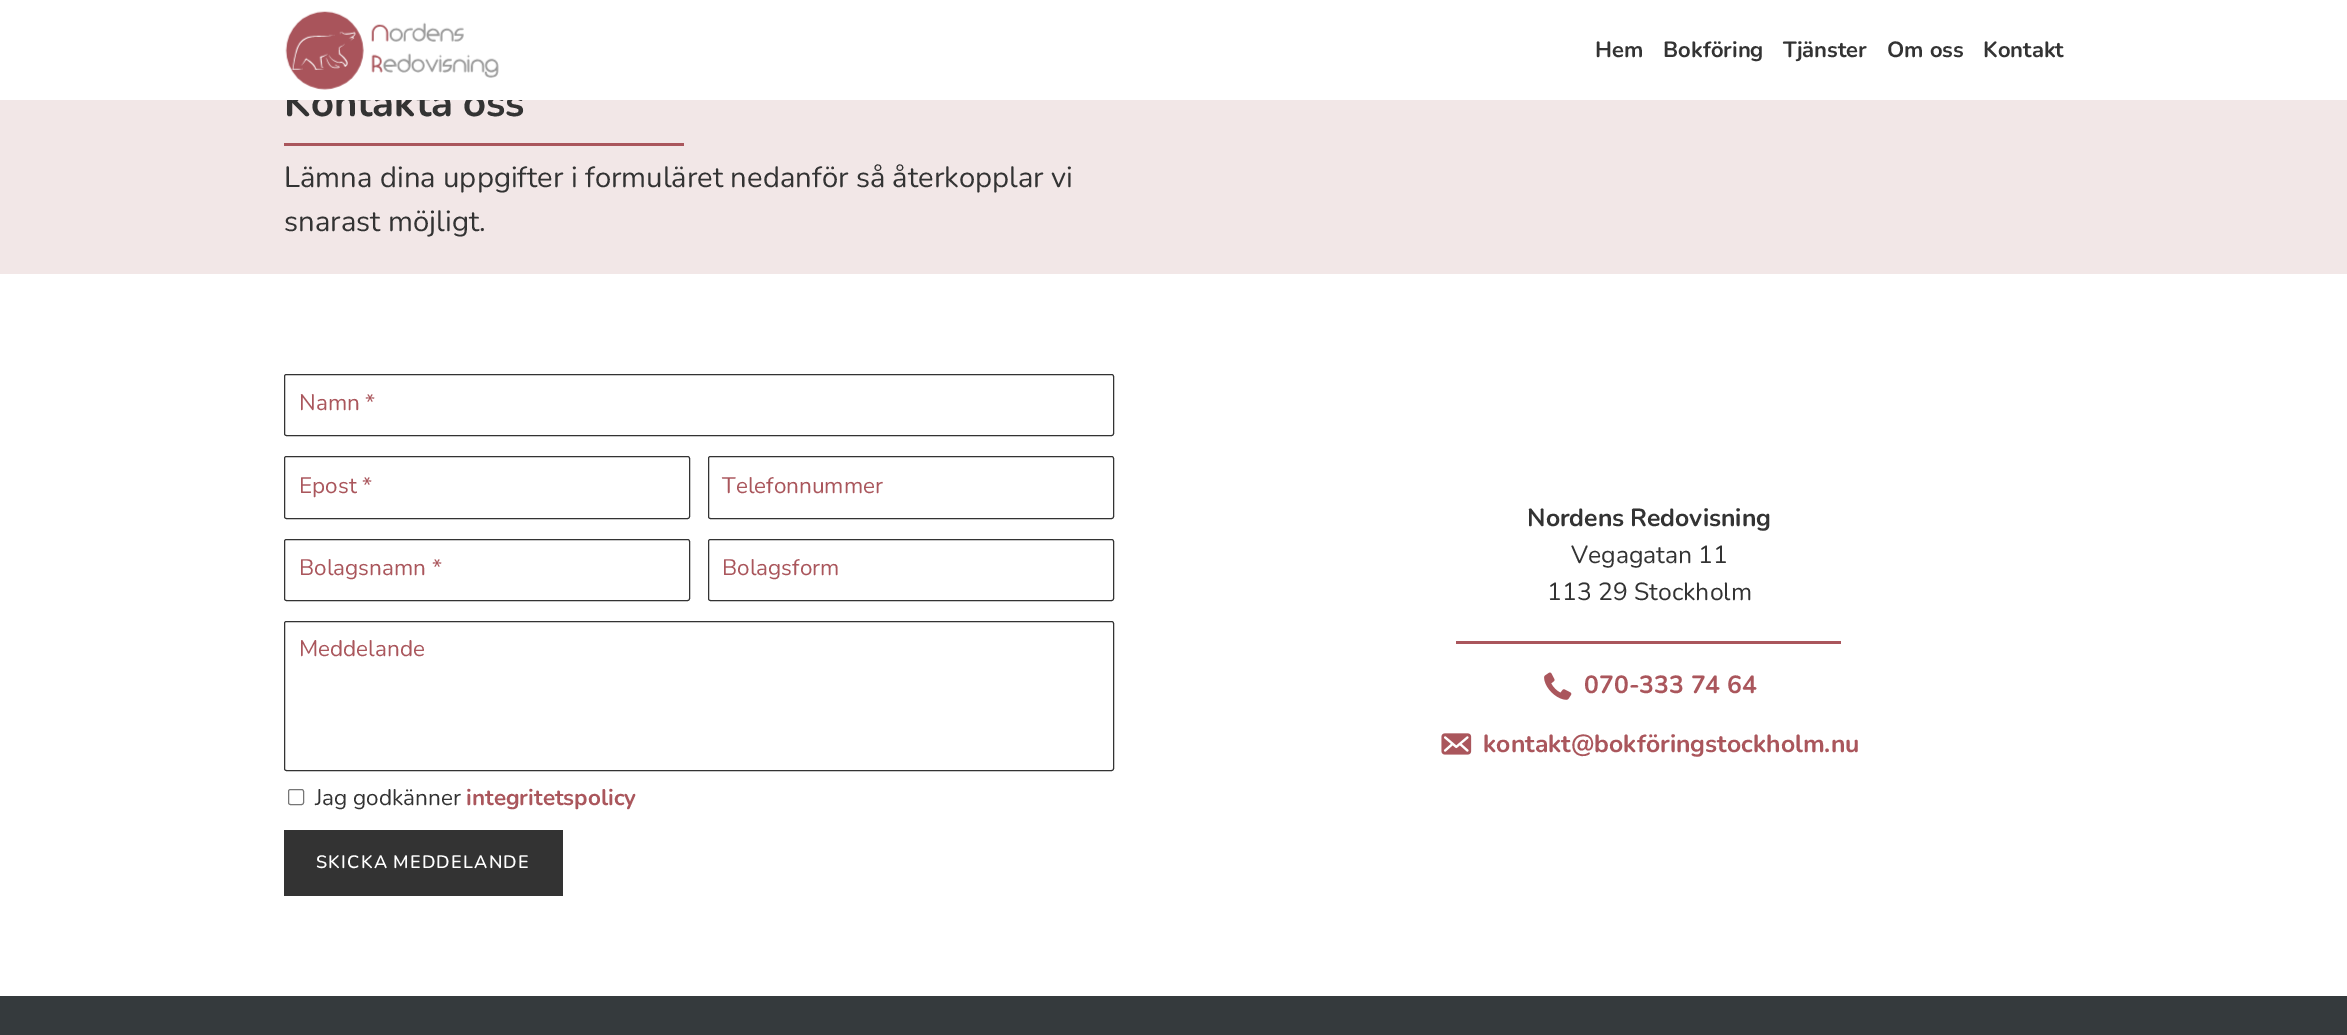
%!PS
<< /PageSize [2347 1035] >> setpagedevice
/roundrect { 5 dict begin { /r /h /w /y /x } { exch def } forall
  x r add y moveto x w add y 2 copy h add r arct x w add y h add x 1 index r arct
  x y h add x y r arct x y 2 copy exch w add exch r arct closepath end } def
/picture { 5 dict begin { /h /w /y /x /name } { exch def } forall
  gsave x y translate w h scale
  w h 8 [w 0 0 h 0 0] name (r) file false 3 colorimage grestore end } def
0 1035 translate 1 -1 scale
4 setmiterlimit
1 setgray
0 0 2347 1035 rectfill
0.949 0.906 0.906 setrgbcolor
0 100 2347 174 rectfill
/Nunito-Bold [40 0 0 -40 0 0] selectfont
0.2 setgray
284 116 moveto -1 0 32 (Kontakta oss) widthshow
1 setgray
286 87 237 13 rectfill
(img1.rgb) 285 11 214 79 picture
/Nunito-Bold [22 0 0 -22 0 0] selectfont
0.2 setgray
1595 57 moveto (Hem) show
1663 57 moveto (Bokföring) show
1783 57 moveto (Tjänster) show
1887 57 moveto (Om oss) show
1983 57 moveto (Kontakt) show
0.667 0.337 0.361 setrgbcolor
284 143 400 3 rectfill
/Nunito-Regular [29.25 0 0 -29.25 0 0] selectfont
0.2 setgray
284 187 moveto -0.25 0 32 (Lämna dina uppgifter i formuläret nedanför så återkopplar vi) widthshow
284 231 moveto (snarast möjligt.) show
284.5 374.5 829 61 2 roundrect stroke
/Nunito-Regular [22.5 0 0 -22.5 0 0] selectfont
0.667 0.337 0.361 setrgbcolor
299 410 moveto (Namn *) show
0.2 setgray
284.5 456.5 405 62 2 roundrect stroke
0.667 0.337 0.361 setrgbcolor
299 493 moveto (Epost *) show
0.2 setgray
708.5 456.5 405 62 2 roundrect stroke
0.667 0.337 0.361 setrgbcolor
722 493 moveto (Telefonnummer) show
0.2 setgray
284.5 539.5 405 61 2 roundrect stroke
0.667 0.337 0.361 setrgbcolor
299 575 moveto (Bolagsnamn *) show
0.2 setgray
708.5 539.5 405 61 2 roundrect stroke
0.667 0.337 0.361 setrgbcolor
722 575 moveto (Bolagsform) show
0.2 setgray
284.5 621.5 829 149 2 roundrect stroke
0.667 0.337 0.361 setrgbcolor
299 656 moveto (Meddelande) show
0.463 setgray
288.5 789.5 15 15 2 roundrect stroke
0.2 setgray
315 805 moveto (Jag godkänner) show
/Nunito-Bold [22.5 0 0 -22.5 0 0] selectfont
0.667 0.337 0.361 setrgbcolor
466 805 moveto (integritetspolicy) show
0.2 setgray
284 830 279 66 rectfill
/Nunito-SemiBold [18 0 0 -18 0 0] selectfont
1 setgray
316 868 moveto -1 0 32 1.25 0 (SKICKA MEDDELANDE) awidthshow
/Nunito-Bold [24.75 0 0 -24.75 0 0] selectfont
0.2 setgray
1527 526 moveto -1 0 32 (Nordens Redovisning) widthshow
/Nunito-Regular [24.75 0 0 -24.75 0 0] selectfont
1571 563 moveto -1 0 32 (Vegagatan 11) widthshow
1547 600 moveto (113 29 Stockholm) show
0.667 0.337 0.361 setrgbcolor
1456 641 385 3 rectfill
(img2.rgb) 1544 672 28 28 picture
/Nunito-Bold [24.75 0 0 -24.75 0 0] selectfont
1584 693 moveto (070-333 74 64) show
(img3.rgb) 1441 733 31 22 picture
1483 752 moveto (kontakt@bokföringstockholm.nu) show
0.208 0.227 0.239 setrgbcolor
0 996 2347 39 rectfill
showpage
